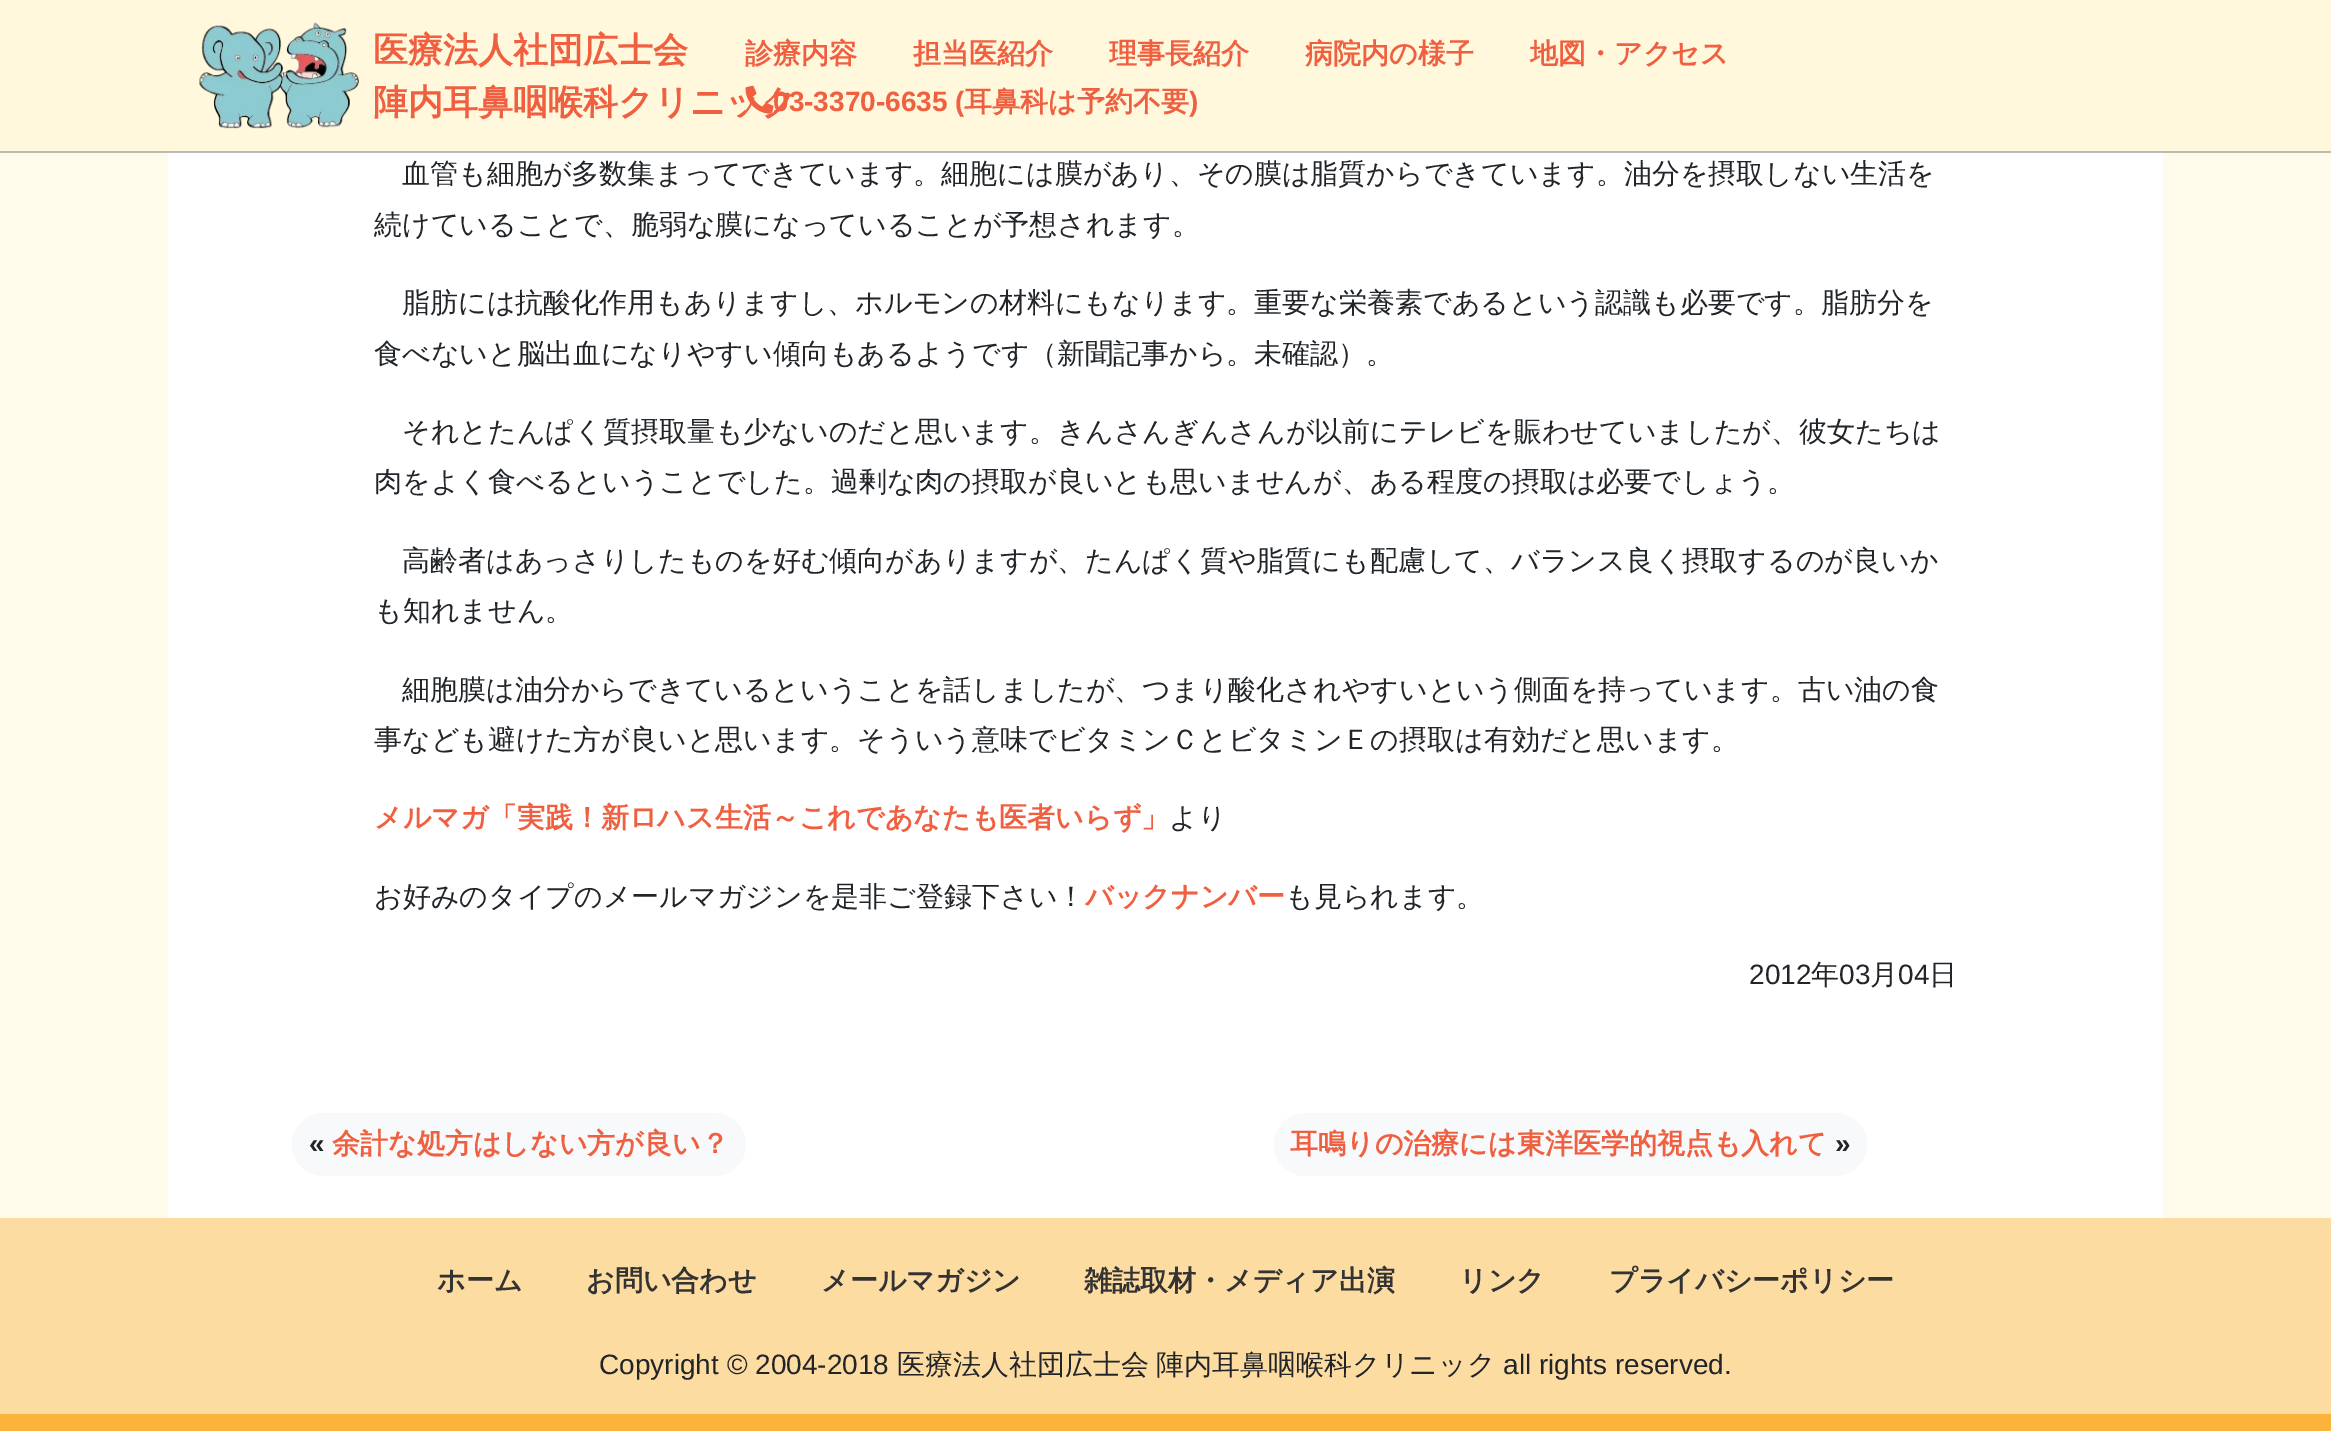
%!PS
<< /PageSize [2331 1431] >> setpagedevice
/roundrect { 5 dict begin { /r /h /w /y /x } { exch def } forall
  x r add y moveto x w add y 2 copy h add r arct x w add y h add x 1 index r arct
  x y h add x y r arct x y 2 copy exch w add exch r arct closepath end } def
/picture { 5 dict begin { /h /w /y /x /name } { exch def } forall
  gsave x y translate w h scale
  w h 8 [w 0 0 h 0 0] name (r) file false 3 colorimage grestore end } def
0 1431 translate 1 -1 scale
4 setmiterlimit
1 0.984 0.918 setrgbcolor
0 0 2331 1431 rectfill
1 0.973 0.863 setrgbcolor
0 0 2331 151 rectfill
0.737 0.725 0.651 setrgbcolor
0 151 2331 1 rectfill
(img1.rgb) 199 22 160 107 picture
/WenQuanYiZenHei-Bold [35 0 0 -35 0 0] selectfont
0.941 0.373 0.251 setrgbcolor
373 62 moveto (医療法人社団広士会) show
373 114 moveto (陣内耳鼻咽喉科クリニック) show
/WenQuanYiZenHei-Bold [28 0 0 -28 0 0] selectfont
745 63 moveto (診療内容) show
913 63 moveto (担当医紹介) show
1109 63 moveto (理事長紹介) show
1305 63 moveto (病院内の様子) show
1530 63 moveto (地図・アクセス) show
(img2.rgb) 745 85 29 29 picture
/LiberationSans-Bold [28 0 0 -28 0 0] selectfont
773 111 moveto (03-3370-6635 \() show
/WenQuanYiZenHei-Bold [28 0 0 -28 0 0] selectfont
964 111 moveto (耳鼻科は予約不要) show
/LiberationSans-Bold [28 0 0 -28 0 0] selectfont
1189 111 moveto (\)) show
0.737 0.733 0.69 setrgbcolor
0 152 2331 1 rectfill
1 setgray
168 153 1995 1065 rectfill
0.737 0.745 0.749 setrgbcolor
168 152 1995 1 rectfill
/WenQuanYiZenHei-Medium [28 0 0 -28 0 0] selectfont
0.129 0.145 0.161 setrgbcolor
402 183 moveto (血管も細胞が多数集まってできています。細胞には膜があり、その膜は脂質からできています。油分を摂取しない生活を) show
374 234 moveto (続けていることで、脆弱な膜になっていることが予想されます。) show
402 312 moveto (脂肪には抗酸化作用もありますし、ホルモンの材料にもなります。重要な栄養素であるという認識も必要です。脂肪分を) show
374 363 moveto (食べないと脳出血になりやすい傾向もあるようです（新聞記事から。未確認）。) show
402 441 moveto (それとたんぱく質摂取量も少ないのだと思います。きんさんぎんさんが以前にテレビを賑わせていましたが、彼女たちは) show
374 491 moveto (肉をよく食べるということでした。過剰な肉の摂取が良いとも思いませんが、ある程度の摂取は必要でしょう。) show
402 570 moveto (高齢者はあっさりしたものを好む傾向がありますが、たんぱく質や脂質にも配慮して、バランス良く摂取するのが良いか) show
374 620 moveto (も知れません。) show
402 699 moveto (細胞膜は油分からできているということを話しましたが、つまり酸化されやすいという側面を持っています。古い油の食) show
374 749 moveto (事なども避けた方が良いと思います。そういう意味でビタミンＣとビタミンＥの摂取は有効だと思います。) show
/WenQuanYiZenHei-Bold [28 0 0 -28 0 0] selectfont
0.941 0.373 0.251 setrgbcolor
374 827 moveto (メルマガ「実践！新ロハス生活～これであなたも医者いらず」) show
/WenQuanYiZenHei-Medium [28 0 0 -28 0 0] selectfont
0.129 0.145 0.161 setrgbcolor
1169 827 moveto (より) show
374 906 moveto (お好みのタイプのメールマガジンを是非ご登録下さい！) show
/WenQuanYiZenHei-Bold [28 0 0 -28 0 0] selectfont
0.941 0.373 0.251 setrgbcolor
1085 906 moveto (バックナンバー) show
/WenQuanYiZenHei-Medium [28 0 0 -28 0 0] selectfont
0.129 0.145 0.161 setrgbcolor
1285 906 moveto (も見られます。) show
/LiberationSans-Regular [28 0 0 -28 0 0] selectfont
1749 984 moveto (2012) show
/WenQuanYiZenHei-Medium [28 0 0 -28 0 0] selectfont
1811 984 moveto (年) show
/LiberationSans-Regular [28 0 0 -28 0 0] selectfont
1839 984 moveto (03) show
/WenQuanYiZenHei-Medium [28 0 0 -28 0 0] selectfont
1870 984 moveto (月) show
/LiberationSans-Regular [28 0 0 -28 0 0] selectfont
1898 984 moveto (04) show
/WenQuanYiZenHei-Medium [28 0 0 -28 0 0] selectfont
1929 984 moveto (日) show
0.973 0.976 0.98 setrgbcolor
292 1113 454 63 31.5 roundrect fill
/LiberationSans-Bold [28 0 0 -28 0 0] selectfont
0.129 0.145 0.161 setrgbcolor
309 1153 moveto («) show
/WenQuanYiZenHei-Bold [28 0 0 -28 0 0] selectfont
0.941 0.373 0.251 setrgbcolor
332 1153 moveto (余計な処方はしない方が良い？) show
0.973 0.976 0.98 setrgbcolor
1274 1113 593 63 31.5 roundrect fill
0.941 0.373 0.251 setrgbcolor
1290 1153 moveto (耳鳴りの治療には東洋医学的視点も入れて) show
/LiberationSans-Bold [28 0 0 -28 0 0] selectfont
0.129 0.145 0.161 setrgbcolor
1835 1153 moveto (») show
0.992 0.863 0.635 setrgbcolor
0 1218 2331 196 rectfill
0.984 0.702 0.235 setrgbcolor
0 1414 2331 17 rectfill
/WenQuanYiZenHei-Bold [28 0 0 -28 0 0] selectfont
0.2 setgray
437 1290 moveto (ホーム) show
586 1290 moveto (お問い合わせ) show
821 1290 moveto (メールマガジン) show
1084 1290 moveto (雑誌取材・メディア出演) show
1459 1290 moveto (リンク) show
1609 1290 moveto (プライバシーポリシー) show
/LiberationSans-Regular [28 0 0 -28 0 0] selectfont
0.129 0.145 0.161 setrgbcolor
599 1374 moveto (Copyright © 2004-2018) show
/WenQuanYiZenHei-Medium [28 0 0 -28 0 0] selectfont
897 1374 moveto (医療法人社団広士会) show
1156 1374 moveto (陣内耳鼻咽喉科クリニック) show
/LiberationSans-Regular [28 0 0 -28 0 0] selectfont
1503 1374 moveto (all rights reserved.) show
showpage
